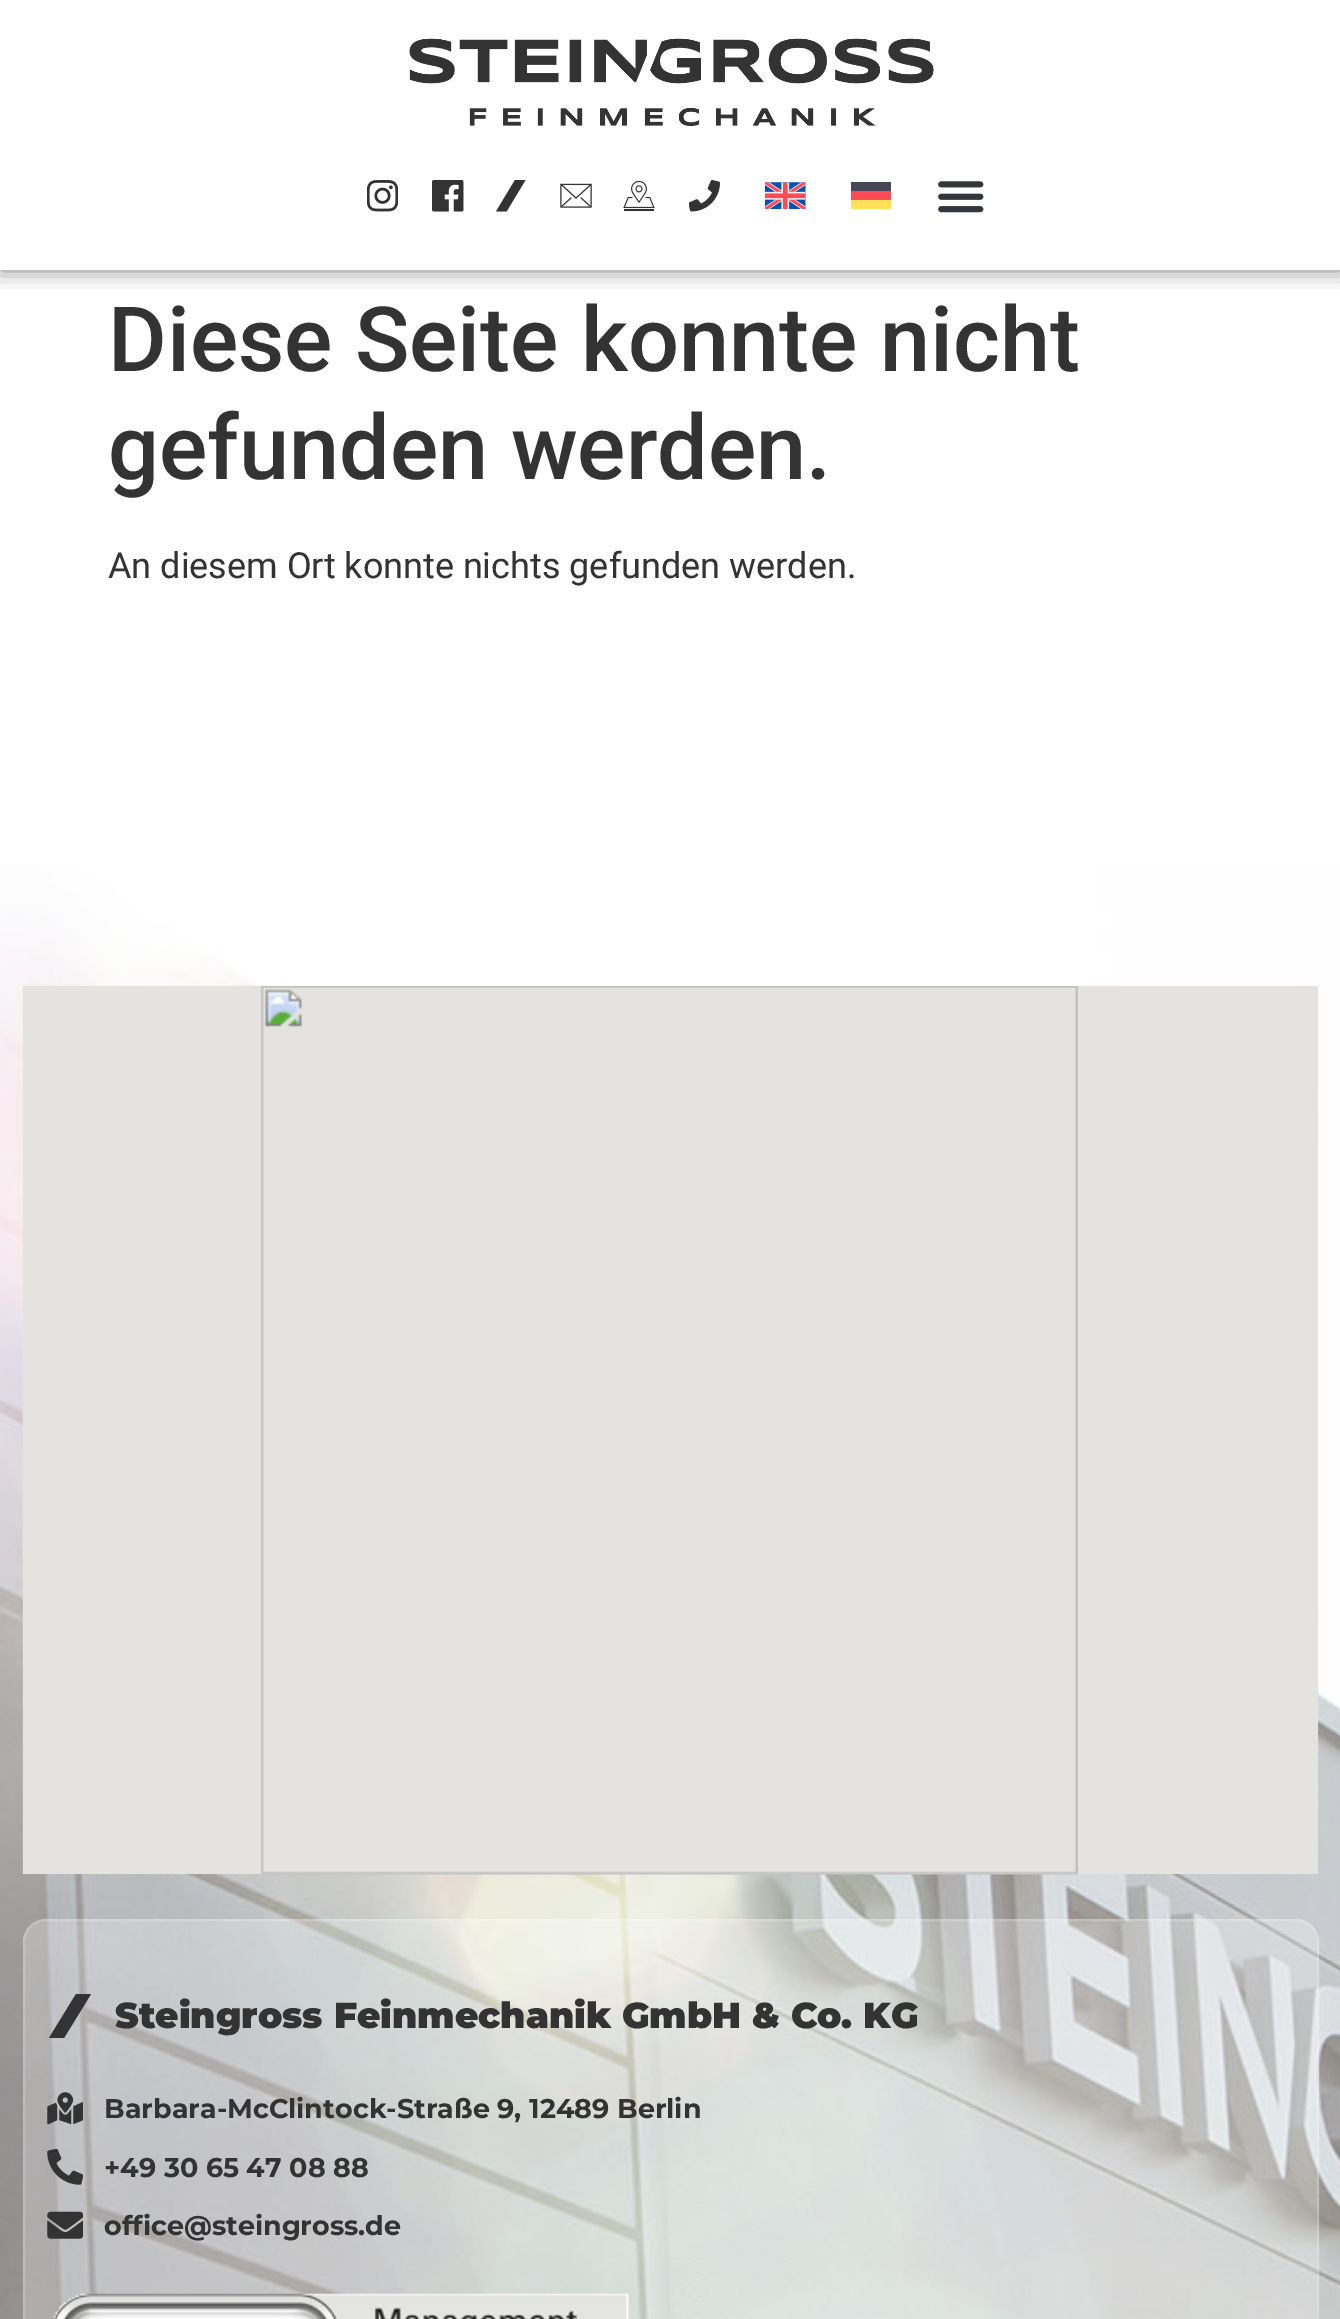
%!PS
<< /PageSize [1340 2319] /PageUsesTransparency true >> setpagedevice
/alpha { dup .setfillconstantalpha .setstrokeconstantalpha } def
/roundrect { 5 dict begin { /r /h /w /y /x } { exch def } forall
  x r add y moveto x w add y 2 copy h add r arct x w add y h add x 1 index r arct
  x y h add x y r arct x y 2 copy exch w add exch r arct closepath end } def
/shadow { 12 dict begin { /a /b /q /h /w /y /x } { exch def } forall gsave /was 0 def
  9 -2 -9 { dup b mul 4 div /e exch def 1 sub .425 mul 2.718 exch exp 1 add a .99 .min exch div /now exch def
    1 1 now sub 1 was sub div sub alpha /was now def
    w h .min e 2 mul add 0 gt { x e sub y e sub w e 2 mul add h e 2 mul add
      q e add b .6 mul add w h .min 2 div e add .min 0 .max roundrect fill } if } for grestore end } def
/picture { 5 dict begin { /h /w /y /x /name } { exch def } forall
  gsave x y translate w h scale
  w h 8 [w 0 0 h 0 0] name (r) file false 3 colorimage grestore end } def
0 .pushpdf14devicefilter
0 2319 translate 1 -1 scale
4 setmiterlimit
1 setgray
0 0 1340 2319 rectfill
gsave
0 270 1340 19 rectclip
0 setgray
0 0 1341 270 0 11 0.5 shadow
grestore
(img1.rgb) 409 38 525 88 picture
(img2.rgb) 367 180 31 32 picture
(img3.rgb) 432 180 32 32 picture
0.2 setgray
newpath 506.5 211.5 moveto 496 211.5 lineto 515 180 lineto 525.5 180 lineto closepath fill
(img4.rgb) 560 183 32 25 picture
(img5.rgb) 623 180 32 31 picture
(img6.rgb) 689 180 31 32 picture
(img7.rgb) 765 182 41 27 picture
0.275 0.275 0.333 setrgbcolor
851 182 40 9 rectfill
1 0.294 0.333 setrgbcolor
851 191 40 9 rectfill
1 0.882 0.353 setrgbcolor
851 200 40 9 rectfill
(img8.rgb) 938 181 46 32 picture
/Roboto-Medium [90 0 0 -90 0 0] selectfont
0.2 setgray
108 371 moveto (Diese Seite konnte nicht) show
108 479 moveto (gefunden werden.) show
/Roboto-Regular [36 0 0 -36 0 0] selectfont
108 578 moveto (An diesem Ort konnte nichts gefunden werden.) show
(img9.rgb) 0 864 1340 1455 picture
(img10.rgb) 22 985 1297 890 picture
0.25 alpha
1 setgray
23 1919 1296 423 23 roundrect fill
0.18 alpha
2 setlinewidth
24 1920 1294 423 22 roundrect stroke
1 alpha
0.2 setgray
newpath 64 2038 moveto 49 2038 lineto 76 1994 lineto 91 1994 lineto closepath fill
/Montserrat-Black [36 0 0 -36 0 0] selectfont
115 2028 moveto (Steingross Feinmechanik GmbH & Co. KG) show
(img11.rgb) 47 2092 36 33 picture
/Montserrat-Bold [27 0 0 -27 0 0] selectfont
104 2118 moveto (Barbara-McClintock-Straße 9, 12489 Berlin) show
(img12.rgb) 47 2149 36 36 picture
104 2177 moveto (+49 30 65 47 08 88) show
(img13.rgb) 47 2211 36 28 picture
104 2235 moveto (office@steingross.de) show
(img14.rgb) 52 2293 577 26 picture
.poppdf14devicefilter showpage
